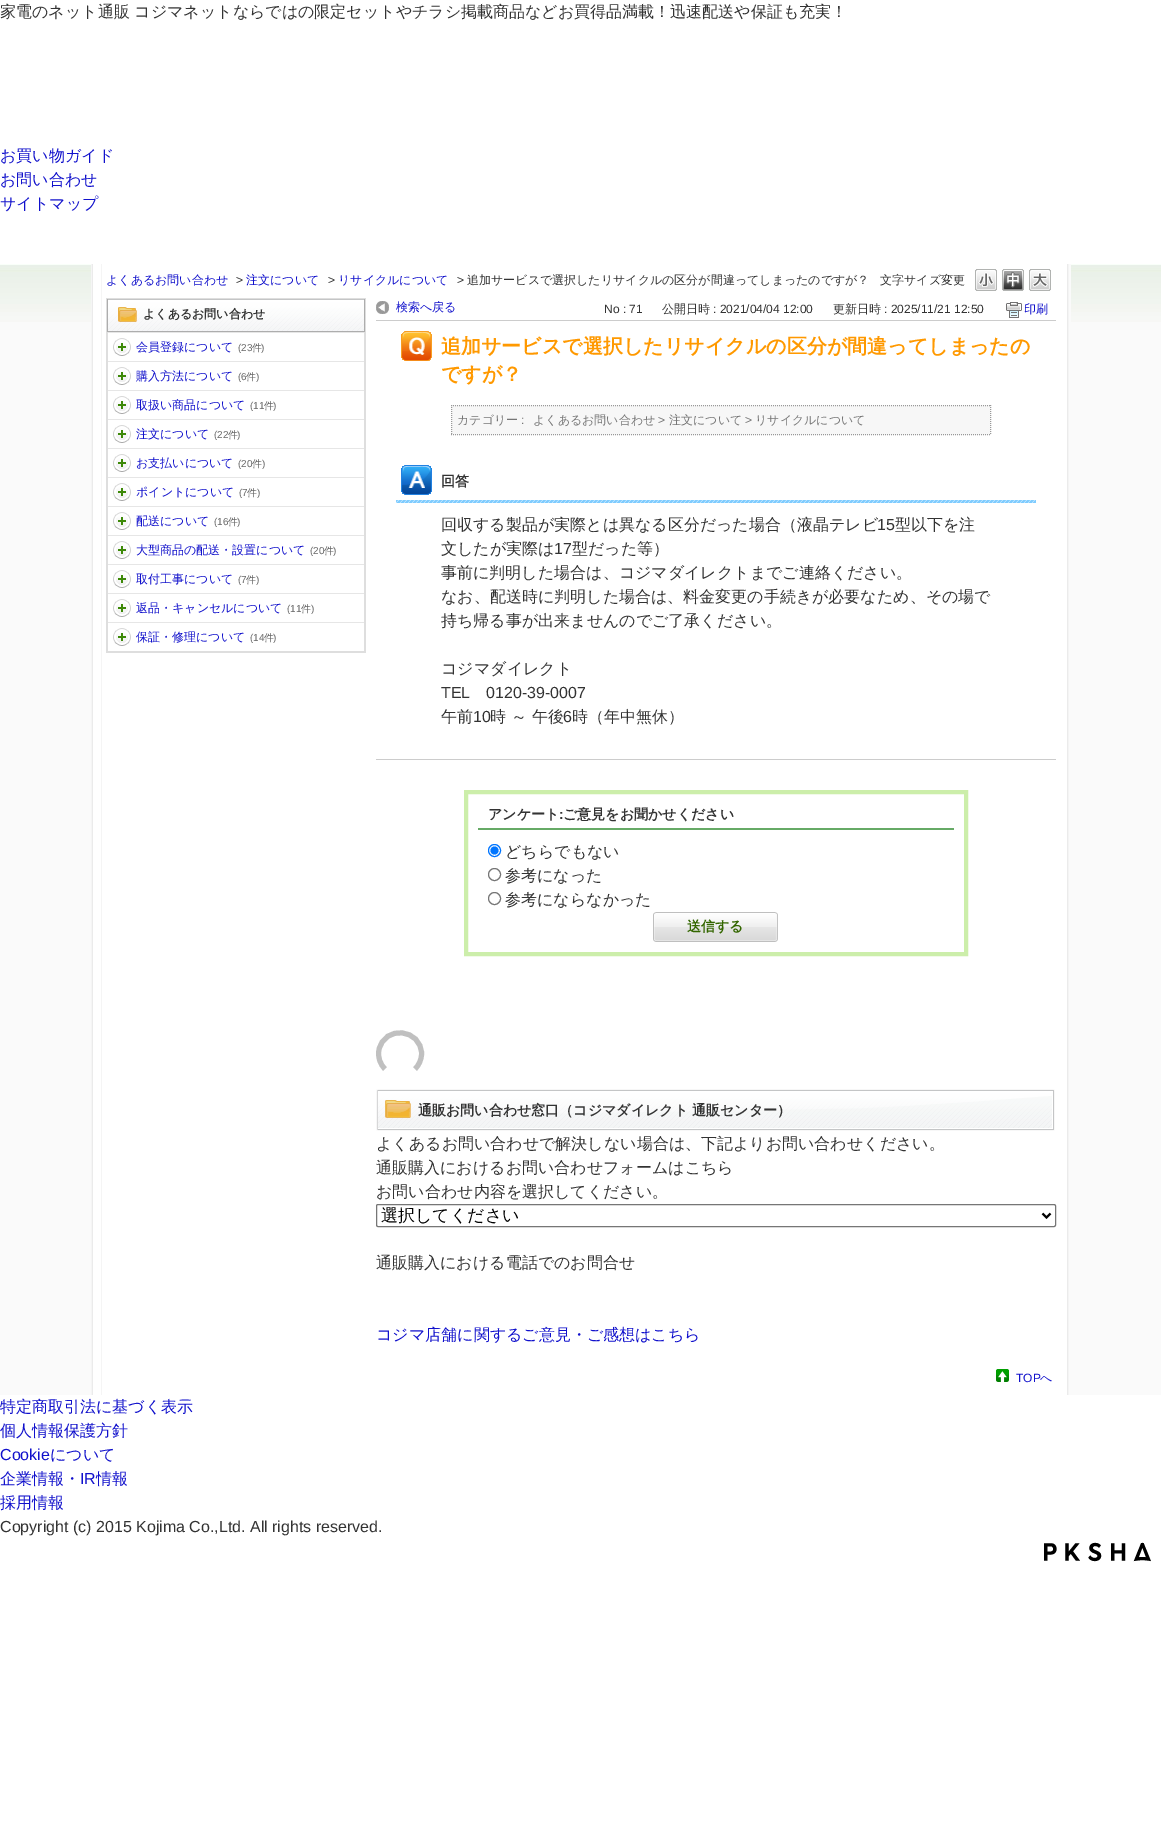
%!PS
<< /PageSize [1161 1840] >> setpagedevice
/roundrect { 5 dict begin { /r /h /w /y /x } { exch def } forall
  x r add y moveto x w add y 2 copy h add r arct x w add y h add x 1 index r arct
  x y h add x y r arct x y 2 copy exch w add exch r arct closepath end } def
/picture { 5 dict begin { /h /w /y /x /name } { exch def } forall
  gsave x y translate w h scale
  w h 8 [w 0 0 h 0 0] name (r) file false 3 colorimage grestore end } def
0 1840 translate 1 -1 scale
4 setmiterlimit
1 setgray
0 0 1161 1840 rectfill
/WenQuanYiZenHei-Medium [16 0 0 -16 0 0] selectfont
0.2 setgray
0 17 moveto (家電のネット通販 コジマネットならではの限定セットやチラシ掲載商品などお買得品満載！迅速配送や保証も充実！) show
0.067 0.067 0.8 setrgbcolor
0 161 moveto (お買い物ガイド) show
0 185 moveto (お問い合わせ) show
0 209 moveto (サイトマップ) show
0.98 setgray
0 322 1161 1073 rectfill
(img1.rgb) 0 264 1161 58 picture
1 setgray
102 264 965 1131 rectfill
(img2.rgb) 1067 264 4 1131 picture
(img3.rgb) 91 264 11 1131 picture
/WenQuanYiZenHei-Medium [12 0 0 -12 0 0] selectfont
0.067 0.067 0.8 setrgbcolor
106 284 moveto (よくあるお問い合わせ) show
/LiberationSans-Regular [12 0 0 -12 0 0] selectfont
0.2 setgray
236 284 moveto (>) show
/WenQuanYiZenHei-Medium [12 0 0 -12 0 0] selectfont
0.067 0.067 0.8 setrgbcolor
246 284 moveto (注文について) show
/LiberationSans-Regular [12 0 0 -12 0 0] selectfont
0.2 setgray
328 284 moveto (>) show
/WenQuanYiZenHei-Medium [12 0 0 -12 0 0] selectfont
0.067 0.067 0.8 setrgbcolor
338 284 moveto (リサイクルについて) show
/LiberationSans-Regular [12 0 0 -12 0 0] selectfont
0.2 setgray
457 284 moveto (>) show
/WenQuanYiZenHei-Medium [12 0 0 -12 0 0] selectfont
467 284 moveto (追加サービスで選択したリサイクルの区分が間違ってしまったのですが？) show
880 284 moveto (文字サイズ変更) show
(img4.rgb) 975 269 22 22 picture
(img5.rgb) 1002 269 22 22 picture
(img6.rgb) 1029 269 22 22 picture
0.871 setgray
106 298 260 355 rectfill
(img7.rgb) 108 299 256 32 picture
0.678 setgray
364 299 1 33 rectfill
107 331 258 1 rectfill
107 299 1 33 rectfill
(img8.rgb) 118 307 19 15 picture
/WenQuanYiZenHei-Bold [12 0 0 -12 0 0] selectfont
0.2 setgray
143 318 moveto (よくあるお問い合わせ) show
1 setgray
108 333 256 318 rectfill
0.902 setgray
108 332 256 1 rectfill
(img9.rgb) 113 338 18 18 picture
/WenQuanYiZenHei-Medium [12 0 0 -12 0 0] selectfont
0.067 0.067 0.8 setrgbcolor
136 351 moveto (会員登録について) show
/LiberationSans-Regular [10 0 0 -10 0 0] selectfont
0.4 setgray
238 351 moveto (\(23) show
/WenQuanYiZenHei-Medium [10 0 0 -10 0 0] selectfont
252 351 moveto (件) show
/LiberationSans-Regular [10 0 0 -10 0 0] selectfont
261 351 moveto (\)) show
0.902 setgray
108 361 256 1 rectfill
(img9.rgb) 113 367 18 18 picture
/WenQuanYiZenHei-Medium [12 0 0 -12 0 0] selectfont
0.067 0.067 0.8 setrgbcolor
136 380 moveto (購入方法について) show
/LiberationSans-Regular [10 0 0 -10 0 0] selectfont
0.4 setgray
238 380 moveto (\(6) show
/WenQuanYiZenHei-Medium [10 0 0 -10 0 0] selectfont
246 380 moveto (件) show
/LiberationSans-Regular [10 0 0 -10 0 0] selectfont
256 380 moveto (\)) show
0.902 setgray
108 390 256 1 rectfill
(img9.rgb) 113 396 18 18 picture
/WenQuanYiZenHei-Medium [12 0 0 -12 0 0] selectfont
0.067 0.067 0.8 setrgbcolor
136 409 moveto (取扱い商品について) show
/LiberationSans-Regular [10 0 0 -10 0 0] selectfont
0.4 setgray
250 409 moveto (\(11) show
/WenQuanYiZenHei-Medium [10 0 0 -10 0 0] selectfont
264 409 moveto (件) show
/LiberationSans-Regular [10 0 0 -10 0 0] selectfont
273 409 moveto (\)) show
0.902 setgray
108 419 256 1 rectfill
(img9.rgb) 113 425 18 18 picture
/WenQuanYiZenHei-Medium [12 0 0 -12 0 0] selectfont
0.067 0.067 0.8 setrgbcolor
136 438 moveto (注文について) show
/LiberationSans-Regular [10 0 0 -10 0 0] selectfont
0.4 setgray
214 438 moveto (\(22) show
/WenQuanYiZenHei-Medium [10 0 0 -10 0 0] selectfont
228 438 moveto (件) show
/LiberationSans-Regular [10 0 0 -10 0 0] selectfont
237 438 moveto (\)) show
0.902 setgray
108 448 256 1 rectfill
(img9.rgb) 113 454 18 18 picture
/WenQuanYiZenHei-Medium [12 0 0 -12 0 0] selectfont
0.067 0.067 0.8 setrgbcolor
136 467 moveto (お支払いについて) show
/LiberationSans-Regular [10 0 0 -10 0 0] selectfont
0.4 setgray
238 467 moveto (\(20) show
/WenQuanYiZenHei-Medium [10 0 0 -10 0 0] selectfont
252 467 moveto (件) show
/LiberationSans-Regular [10 0 0 -10 0 0] selectfont
262 467 moveto (\)) show
0.902 setgray
108 477 256 1 rectfill
(img9.rgb) 113 483 18 18 picture
/WenQuanYiZenHei-Medium [12 0 0 -12 0 0] selectfont
0.067 0.067 0.8 setrgbcolor
136 496 moveto (ポイントについて) show
/LiberationSans-Regular [10 0 0 -10 0 0] selectfont
0.4 setgray
239 496 moveto (\(7) show
/WenQuanYiZenHei-Medium [10 0 0 -10 0 0] selectfont
247 496 moveto (件) show
/LiberationSans-Regular [10 0 0 -10 0 0] selectfont
257 496 moveto (\)) show
0.902 setgray
108 506 256 1 rectfill
(img9.rgb) 113 512 18 18 picture
/WenQuanYiZenHei-Medium [12 0 0 -12 0 0] selectfont
0.067 0.067 0.8 setrgbcolor
136 525 moveto (配送について) show
/LiberationSans-Regular [10 0 0 -10 0 0] selectfont
0.4 setgray
214 525 moveto (\(16) show
/WenQuanYiZenHei-Medium [10 0 0 -10 0 0] selectfont
228 525 moveto (件) show
/LiberationSans-Regular [10 0 0 -10 0 0] selectfont
237 525 moveto (\)) show
0.902 setgray
108 535 256 1 rectfill
(img9.rgb) 113 541 18 18 picture
/WenQuanYiZenHei-Medium [12 0 0 -12 0 0] selectfont
0.067 0.067 0.8 setrgbcolor
136 554 moveto (大型商品の配送・設置について) show
/LiberationSans-Regular [10 0 0 -10 0 0] selectfont
0.4 setgray
310 554 moveto (\(20) show
/WenQuanYiZenHei-Medium [10 0 0 -10 0 0] selectfont
324 554 moveto (件) show
/LiberationSans-Regular [10 0 0 -10 0 0] selectfont
333 554 moveto (\)) show
0.902 setgray
108 564 256 1 rectfill
(img9.rgb) 113 570 18 18 picture
/WenQuanYiZenHei-Medium [12 0 0 -12 0 0] selectfont
0.067 0.067 0.8 setrgbcolor
136 583 moveto (取付工事について) show
/LiberationSans-Regular [10 0 0 -10 0 0] selectfont
0.4 setgray
238 583 moveto (\(7) show
/WenQuanYiZenHei-Medium [10 0 0 -10 0 0] selectfont
246 583 moveto (件) show
/LiberationSans-Regular [10 0 0 -10 0 0] selectfont
256 583 moveto (\)) show
0.902 setgray
108 593 256 1 rectfill
(img9.rgb) 113 599 18 18 picture
/WenQuanYiZenHei-Medium [12 0 0 -12 0 0] selectfont
0.067 0.067 0.8 setrgbcolor
136 612 moveto (返品・キャンセルについて) show
/LiberationSans-Regular [10 0 0 -10 0 0] selectfont
0.4 setgray
287 612 moveto (\(11) show
/WenQuanYiZenHei-Medium [10 0 0 -10 0 0] selectfont
301 612 moveto (件) show
/LiberationSans-Regular [10 0 0 -10 0 0] selectfont
311 612 moveto (\)) show
0.902 setgray
108 622 256 1 rectfill
(img9.rgb) 113 628 18 18 picture
/WenQuanYiZenHei-Medium [12 0 0 -12 0 0] selectfont
0.067 0.067 0.8 setrgbcolor
136 641 moveto (保証・修理について) show
/LiberationSans-Regular [10 0 0 -10 0 0] selectfont
0.4 setgray
250 641 moveto (\(14) show
/WenQuanYiZenHei-Medium [10 0 0 -10 0 0] selectfont
264 641 moveto (件) show
/LiberationSans-Regular [10 0 0 -10 0 0] selectfont
273 641 moveto (\)) show
0.8 setgray
376 320 680 1 rectfill
(img10.rgb) 376 301 13 13 picture
/WenQuanYiZenHei-Medium [12 0 0 -12 0 0] selectfont
0.067 0.067 0.8 setrgbcolor
396 311 moveto (検索へ戻る) show
/LiberationSans-Regular [12 0 0 -12 0 0] selectfont
0.2 setgray
604 313 moveto (No : 71) show
/WenQuanYiZenHei-Medium [12 0 0 -12 0 0] selectfont
662 313 moveto (公開日時) show
/LiberationSans-Regular [12 0 0 -12 0 0] selectfont
713 313 moveto (: 2021/04/04 12:00) show
/WenQuanYiZenHei-Medium [12 0 0 -12 0 0] selectfont
833 313 moveto (更新日時) show
/LiberationSans-Regular [12 0 0 -12 0 0] selectfont
884 313 moveto (: 2025/11/21 12:50) show
(img11.rgb) 1006 302 16 16 picture
/WenQuanYiZenHei-Medium [12 0 0 -12 0 0] selectfont
0.067 0.067 0.8 setrgbcolor
1024 313 moveto (印刷) show
(img12.rgb) 401 331 31 30 picture
/WenQuanYiZenHei-Bold [20 0 0 -20 0 0] selectfont
1 0.6 0 setrgbcolor
441 353 moveto (追加サービスで選択したリサイクルの区分が間違ってしまったの) show
441 381 moveto (ですが？) show
0.969 setgray
451 405 540 30 rectfill
0.6 setgray
[1 1] 0 setdash
newpath 451 405.5 moveto 991 405.5 lineto stroke
newpath 990.5 405 moveto 990.5 435 lineto stroke
newpath 451 434.5 moveto 991 434.5 lineto stroke
newpath 451.5 405 moveto 451.5 435 lineto stroke
/WenQuanYiZenHei-Medium [12 0 0 -12 0 0] selectfont
0.463 setgray
457 424 moveto (カテゴリー) show
/LiberationSans-Regular [12 0 0 -12 0 0] selectfont
521 424 moveto (:) show
/WenQuanYiZenHei-Medium [12 0 0 -12 0 0] selectfont
533 424 moveto (よくあるお問い合わせ) show
/LiberationSans-Regular [12 0 0 -12 0 0] selectfont
658 424 moveto (>) show
/WenQuanYiZenHei-Medium [12 0 0 -12 0 0] selectfont
669 424 moveto (注文について) show
/LiberationSans-Regular [12 0 0 -12 0 0] selectfont
745 424 moveto (>) show
/WenQuanYiZenHei-Medium [12 0 0 -12 0 0] selectfont
755 424 moveto (リサイクルについて) show
(img13.rgb) 396 500 640 3 picture
(img14.rgb) 401 465 31 30 picture
/WenQuanYiZenHei-Bold [14 0 0 -14 0 0] selectfont
0.2 setgray
441 486 moveto (回答) show
0.8 setgray
376 759 680 1 rectfill
/WenQuanYiZenHei-Medium [16 0 0 -16 0 0] selectfont
0.2 setgray
441 530 moveto (回収する製品が実際とは異なる区分だった場合（液晶テレビ) show
/LiberationSans-Regular [16 0 0 -16 0 0] selectfont
877 530 moveto (15) show
/WenQuanYiZenHei-Medium [16 0 0 -16 0 0] selectfont
895 530 moveto (型以下を注) show
441 554 moveto (文したが実際は) show
/LiberationSans-Regular [16 0 0 -16 0 0] selectfont
554 554 moveto (17) show
/WenQuanYiZenHei-Medium [16 0 0 -16 0 0] selectfont
572 554 moveto (型だった等）) show
441 578 moveto (事前に判明した場合は、コジマダイレクトまでご連絡ください。) show
441 602 moveto (なお、配送時に判明した場合は、料金変更の手続きが必要なため、その場で) show
441 626 moveto (持ち帰る事が出来ませんのでご了承ください。) show
441 674 moveto (コジマダイレクト) show
/LiberationSans-Regular [16 0 0 -16 0 0] selectfont
441 698 moveto (TEL) show
486 698 moveto (0120-39-0007) show
/WenQuanYiZenHei-Medium [16 0 0 -16 0 0] selectfont
441 722 moveto (午前) show
/LiberationSans-Regular [16 0 0 -16 0 0] selectfont
473 722 moveto (10) show
/WenQuanYiZenHei-Medium [16 0 0 -16 0 0] selectfont
490 722 moveto (時 ～ 午後) show
/LiberationSans-Regular [16 0 0 -16 0 0] selectfont
563 722 moveto (6) show
/WenQuanYiZenHei-Medium [16 0 0 -16 0 0] selectfont
572 722 moveto (時（年中無休）) show
0.8 0.933 0.667 setrgbcolor
4 setlinewidth
[] 0 setdash
466 792 500 162 rectstroke
0.4 0.667 0.4 setrgbcolor
478 828 476 2 rectfill
/WenQuanYiZenHei-Bold [14 0 0 -14 0 0] selectfont
0.2 setgray
488 819 moveto (アンケート) show
/LiberationSans-Bold [14 0 0 -14 0 0] selectfont
559 819 moveto (:) show
/WenQuanYiZenHei-Bold [14 0 0 -14 0 0] selectfont
563 819 moveto (ご意見をお聞かせください) show
0 0.459 1 setrgbcolor
1 setlinewidth
newpath 494.5 850.5 6 0 360 arc closepath stroke
newpath 494.5 850.5 4 0 360 arc closepath fill
/WenQuanYiZenHei-Medium [16 0 0 -16 0 0] selectfont
0.2 setgray
505 857 moveto (どちらでもない) show
0.463 setgray
newpath 494.5 874.5 6 0 360 arc closepath stroke
0.2 setgray
505 881 moveto (参考になった) show
0.463 setgray
newpath 494.5 898.5 6 0 360 arc closepath stroke
0.2 setgray
505 905 moveto (参考にならなかった) show
(img15.rgb) 653 912 125 30 picture
/WenQuanYiZenHei-Bold [14 0 0 -14 0 0] selectfont
0.2 0.4 0 setrgbcolor
687 931 moveto (送信する) show
0.753 setgray
5 setlinewidth
newpath 385 1069 moveto 380 1064 377.5 1057 379 1050 curveto 384 1024.5 421.5 1028.5 421.5 1054 curveto 421.5 1059.5 419 1065 415 1069 curveto stroke
(img16.rgb) 376 1089 2 42 picture
(img17.rgb) 378 1089 677 42 picture
(img18.rgb) 385 1100 26 18 picture
0.2 setgray
418 1115 moveto (通販お問い合わせ窓口（コジマダイレクト 通販センター）) show
/WenQuanYiZenHei-Medium [16 0 0 -16 0 0] selectfont
376 1149 moveto (よくあるお問い合わせで解決しない場合は、下記よりお問い合わせください。) show
376 1173 moveto (通販購入におけるお問い合わせフォームはこちら) show
376 1197 moveto (お問い合わせ内容を選択してください。) show
0.463 setgray
1 setlinewidth
376.5 1204.5 679 22 1.5 roundrect stroke
0 setgray
2 setlinewidth
newpath 1042.5 1213.5 moveto 1046.5 1217.5 lineto 1050.5 1213.5 lineto stroke
/WenQuanYiZenHei-Medium [17 0 0 -17 0 0] selectfont
381 1221 moveto (選択してください) show
/WenQuanYiZenHei-Medium [16 0 0 -16 0 0] selectfont
0.2 setgray
376 1268 moveto (通販購入における電話でのお問合せ) show
0.067 0.067 0.8 setrgbcolor
376 1340 moveto (コジマ店舗に関するご意見・ご感想はこちら) show
(img19.rgb) 996 1369 13 13 picture
/LiberationSans-Regular [12 0 0 -12 0 0] selectfont
1016 1382 moveto (TOP) show
/WenQuanYiZenHei-Medium [12 0 0 -12 0 0] selectfont
1040 1382 moveto (へ) show
/WenQuanYiZenHei-Medium [16 0 0 -16 0 0] selectfont
0 1412 moveto (特定商取引法に基づく表示) show
0 1436 moveto (個人情報保護方針) show
/LiberationSans-Regular [16 0 0 -16 0 0] selectfont
0 1460 moveto (Cookie) show
/WenQuanYiZenHei-Medium [16 0 0 -16 0 0] selectfont
50 1460 moveto (について) show
0 1484 moveto (企業情報・) show
/LiberationSans-Regular [16 0 0 -16 0 0] selectfont
80 1484 moveto (IR) show
/WenQuanYiZenHei-Medium [16 0 0 -16 0 0] selectfont
96 1484 moveto (情報) show
0 1508 moveto (採用情報) show
/LiberationSans-Regular [16 0 0 -16 0 0] selectfont
0.2 setgray
0 1532 moveto (Copyright \(c\) 2015 Kojima Co.,Ltd. All rights reserved.) show
(img20.rgb) 1044 1542 107 20 picture
showpage
